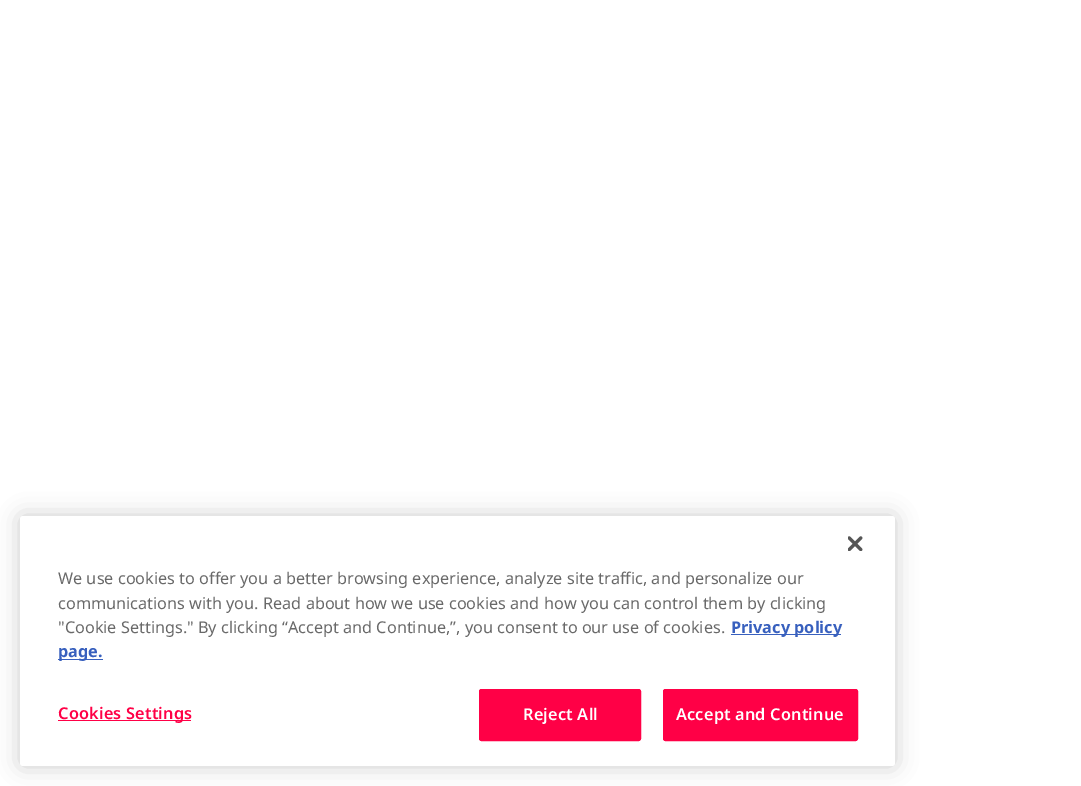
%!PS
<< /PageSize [1081 786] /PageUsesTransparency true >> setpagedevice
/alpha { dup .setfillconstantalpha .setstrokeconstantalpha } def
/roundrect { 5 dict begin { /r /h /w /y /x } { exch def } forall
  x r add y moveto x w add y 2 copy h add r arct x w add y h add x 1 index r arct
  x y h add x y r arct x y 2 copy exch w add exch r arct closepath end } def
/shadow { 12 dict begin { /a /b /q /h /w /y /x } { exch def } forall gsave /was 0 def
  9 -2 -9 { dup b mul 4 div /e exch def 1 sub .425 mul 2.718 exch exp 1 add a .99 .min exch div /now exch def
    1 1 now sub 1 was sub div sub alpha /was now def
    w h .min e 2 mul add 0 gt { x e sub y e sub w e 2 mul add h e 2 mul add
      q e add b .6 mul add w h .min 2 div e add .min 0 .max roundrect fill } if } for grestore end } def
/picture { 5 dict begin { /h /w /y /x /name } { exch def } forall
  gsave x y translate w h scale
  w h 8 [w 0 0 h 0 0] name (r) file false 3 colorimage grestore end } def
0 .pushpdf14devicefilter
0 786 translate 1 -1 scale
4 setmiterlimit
1 setgray
0 0 1081 786 rectfill
0 setgray
20 516 875 250 3 11 0.2 shadow
1 setgray
20 516 875 250 3 roundrect fill
(img1.rgb) 848 536 15 15 picture
/NotoSans-Regular [16.25 0 0 -16.25 0 0] selectfont
0.412 setgray
58 584 moveto (We use cookies to offer you a better browsing experience, analyze site traffic, and personalize our) show
58 609 moveto (communications with you. Read about how we use cookies and how you can control them by clicking) show
58 633 moveto ("Cookie Settings." By clicking “Accept and Continue,”, you consent to our use of cookies.) show
0.22 0.376 0.745 setrgbcolor
731 634 110 1 rectfill
/NotoSans-Bold [16.25 0 0 -16.25 0 0] selectfont
731 633 moveto (Privacy policy) show
58 659 45 1 rectfill
58 657 moveto (page.) show
1 0 0.275 setrgbcolor
58 720 133 1 rectfill
/NotoSans-SemiBold [16.25 0 0 -16.25 0 0] selectfont
58 719 moveto 0.2 0 (Cookies Settings) ashow
479.5 689.5 161 51 2 roundrect gsave fill grestore
stroke
1 setgray
523 720 moveto 0.2 0 (Reject All) ashow
1 0 0.275 setrgbcolor
663.5 689.5 194 51 2 roundrect gsave fill grestore
stroke
1 setgray
676 720 moveto 0.2 0 (Accept and Continue) ashow
.poppdf14devicefilter showpage
